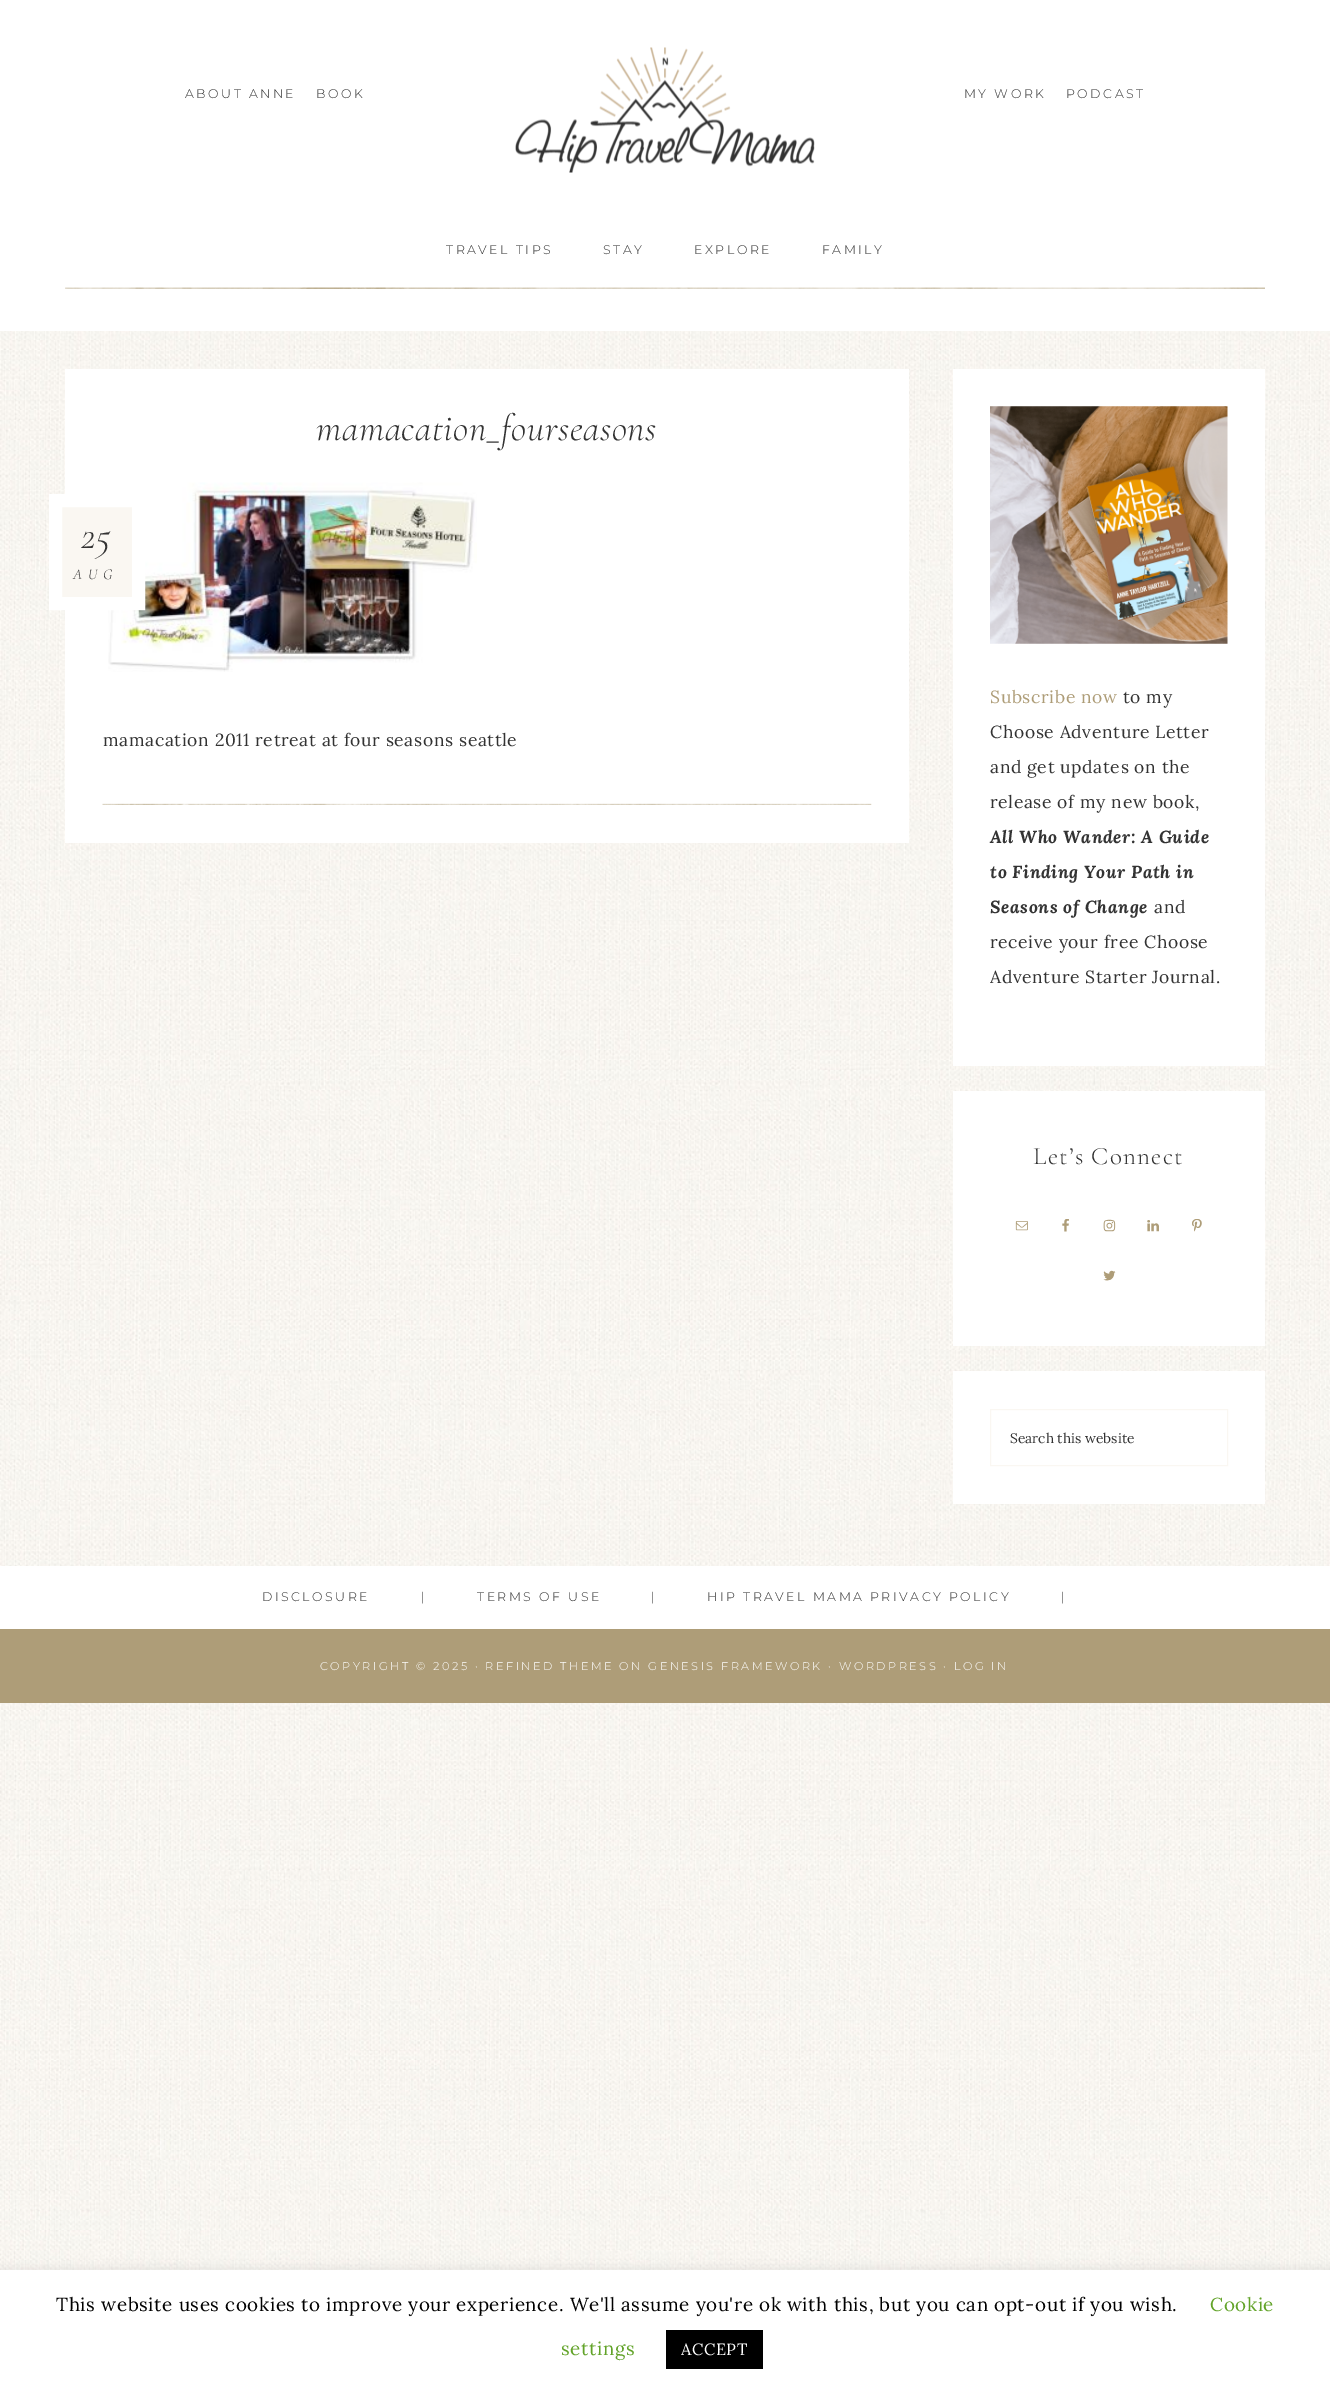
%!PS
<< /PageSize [1330 2389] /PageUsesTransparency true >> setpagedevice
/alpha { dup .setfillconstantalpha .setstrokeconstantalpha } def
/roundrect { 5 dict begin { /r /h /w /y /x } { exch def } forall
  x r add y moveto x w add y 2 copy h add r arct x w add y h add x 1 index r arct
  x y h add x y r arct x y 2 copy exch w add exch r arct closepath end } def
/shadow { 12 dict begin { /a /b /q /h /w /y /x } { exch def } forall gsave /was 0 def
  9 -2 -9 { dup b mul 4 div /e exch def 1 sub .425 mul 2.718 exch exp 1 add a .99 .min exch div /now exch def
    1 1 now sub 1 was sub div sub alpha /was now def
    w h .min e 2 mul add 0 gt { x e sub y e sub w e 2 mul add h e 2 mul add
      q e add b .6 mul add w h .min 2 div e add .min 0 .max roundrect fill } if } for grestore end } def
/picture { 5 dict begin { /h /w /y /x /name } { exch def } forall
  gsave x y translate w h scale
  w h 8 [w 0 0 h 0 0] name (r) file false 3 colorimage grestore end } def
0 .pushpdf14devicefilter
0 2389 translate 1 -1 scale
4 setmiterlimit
1 setgray
0 0 1330 2389 rectfill
(img1.rgb) 0 331 1330 1939 picture
/Montserrat-Light [12.5 0 0 -12.5 0 0] selectfont
0.2 setgray
185 98 moveto 2.5 0 (ABOUT ANNE) ashow
316 98 moveto 2.5 0 (BOOK) ashow
(img2.rgb) 515 47 300 126 picture
964 98 moveto 2.5 0 (MY WORK) ashow
1066 98 moveto 2.5 0 (PODCAST) ashow
(img3.rgb) 65 287 1200 2 picture
446 254 moveto 2.5 0 (TRAVEL TIPS) ashow
603 254 moveto 2.5 0 (STAY) ashow
694 254 moveto 2.5 0 (EXPLORE) ashow
822 254 moveto 2.5 0 (FAMILY) ashow
1 setgray
65 369 844 474 rectfill
/CormorantGaramond-LightItalic [37.5 0 0 -37.5 0 0] selectfont
0.2 setgray
316 440 moveto 0.62 0 (mamacation_fourseasons) ashow
(img4.rgb) 108 482 369 190 picture
0.98 0.969 0.949 setrgbcolor
newpath 55.5 500.5 moveto 138.5 500.5 lineto 138.5 603.5 lineto 55.5 603.5 lineto closepath gsave fill grestore
1 setgray
13 setlinewidth
stroke
/CormorantGaramond-LightItalic [40 0 0 -40 0 0] selectfont
0.2 setgray
81 548 moveto 0.62 0 (25) ashow
/CormorantGaramond-LightItalic [15 0 0 -15 0 0] selectfont
73 579 moveto 6 0 (AUG) ashow
/Lora-Regular [17.5 0 0 -17.5 0 0] selectfont
103 746 moveto 0.62 0 (mamacation 2011 retreat at four seasons seattle) ashow
(img5.rgb) 102 803 770 2 picture
1 setgray
953 369 312 697 rectfill
(img6.rgb) 990 406 238 238 picture
0.682 0.616 0.471 setrgbcolor
990 703 moveto 0.62 0 (Subscribe now) ashow
0.2 setgray
1123 703 moveto 0.62 0 (to my) ashow
990 738 moveto 0.62 0 (Choose Adventure Letter) ashow
990 773 moveto 0.62 0 (and get updates on the) ashow
990 808 moveto 0.62 0 (release of my new book,) ashow
/Lora-BoldItalic [17.5 0 0 -17.5 0 0] selectfont
990 843 moveto 0.62 0 (All Who Wander: A Guide) ashow
990 878 moveto 0.62 0 (to Finding Your Path in) ashow
990 913 moveto 0.62 0 (Seasons of Change) ashow
/Lora-Regular [17.5 0 0 -17.5 0 0] selectfont
1154 913 moveto 0.62 0 (and) ashow
990 948 moveto 0.62 0 (receive your free Choose) ashow
990 983 moveto 0.62 0 (Adventure Starter Journal.) ashow
1 setgray
953 1091 312 255 rectfill
/CormorantGaramond-Light [25 0 0 -25 0 0] selectfont
0.2 setgray
1033 1164 moveto 1.25 0 (Let’s Connect) ashow
(img7.rgb) 1015 1221 13 10 picture
(img8.rgb) 1062 1219 7 13 picture
(img9.rgb) 1103 1219 13 13 picture
(img10.rgb) 1147 1220 12 12 picture
(img11.rgb) 1192 1219 10 13 picture
(img12.rgb) 1103 1270 13 11 picture
1 setgray
953 1371 312 133 rectfill
0.98 0.969 0.949 setrgbcolor
1 setlinewidth
990.5 1409.5 237 56 rectstroke
/Lora-Regular [13.75 0 0 -13.75 0 0] selectfont
0.2 setgray
1010 1443 moveto (Search this website) show
1 setgray
0 1566 1330 63 rectfill
/Montserrat-Light [12.5 0 0 -12.5 0 0] selectfont
0.2 setgray
262 1601 moveto 2.5 0 (DISCLOSURE) ashow
421 1601 moveto 2.5 0 (|) ashow
477 1601 moveto 2.5 0 (TERMS OF USE) ashow
651 1601 moveto 2.5 0 (|) ashow
707 1601 moveto 2.5 0 (HIP TRAVEL MAMA PRIVACY POLICY) ashow
1061 1601 moveto 2.5 0 (|) ashow
0.682 0.616 0.471 setrgbcolor
0 1629 1330 74 rectfill
/Montserrat-Light [11.25 0 0 -11.25 0 0] selectfont
1 setgray
320 1670 moveto 2.5 0 (COPYRIGHT © 2025 · REFINED THEME ON GENESIS FRAMEWORK · WORDPRESS · LOG IN) ashow
0.675 0.671 0.671 setrgbcolor
0 2269 1330 120 0 6 0.3 shadow
1 setgray
0 2270 1330 119 rectfill
/Lora-Regular [18.75 0 0 -18.75 0 0] selectfont
0 setgray
56 2311 moveto 0.62 0 (This website uses cookies to improve your experience. We'll assume you're ok with this, but you can opt-out if you wish.) ashow
0.384 0.639 0.161 setrgbcolor
1210 2311 moveto 0.62 0 (Cookie) ashow
561 2355 moveto 0.62 0 (settings) ashow
0 setgray
666 2330 97 39 rectfill
/Lora-Regular [16.25 0 0 -16.25 0 0] selectfont
1 setgray
681 2355 moveto 0.62 0 (ACCEPT) ashow
.poppdf14devicefilter showpage
